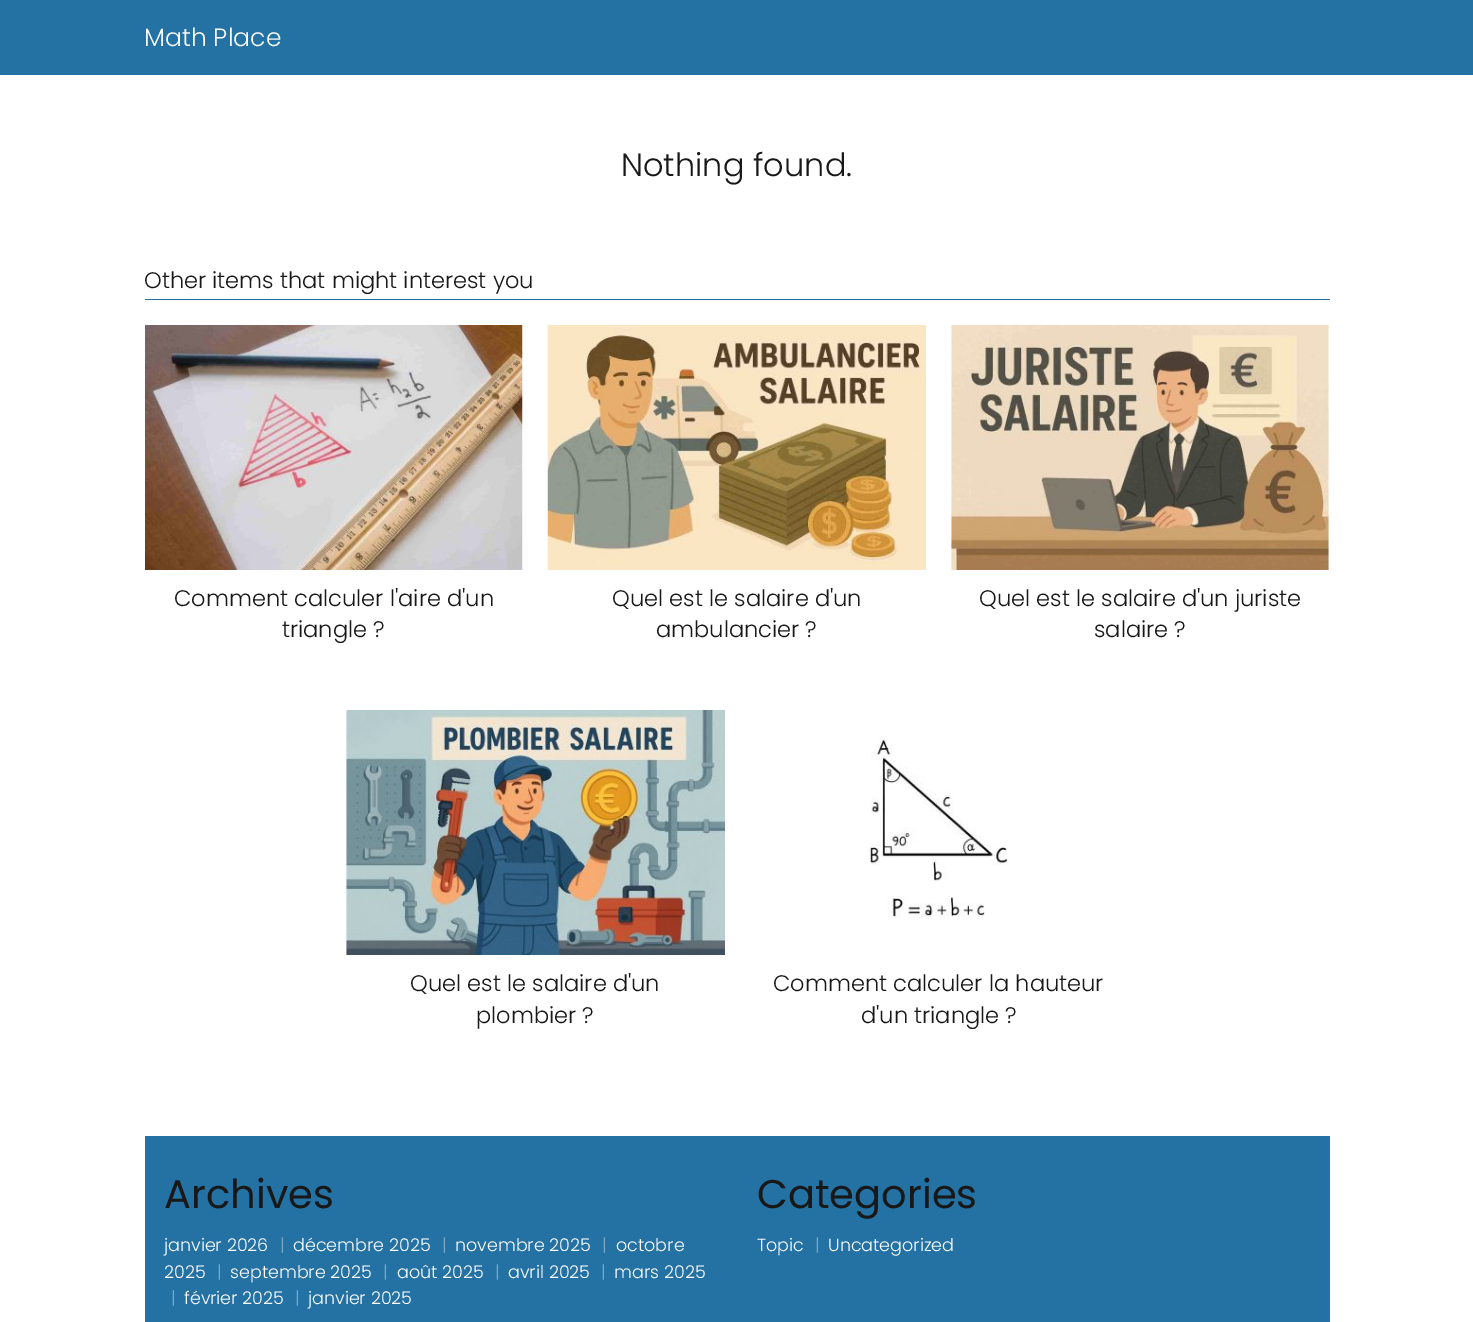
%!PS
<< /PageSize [1473 1322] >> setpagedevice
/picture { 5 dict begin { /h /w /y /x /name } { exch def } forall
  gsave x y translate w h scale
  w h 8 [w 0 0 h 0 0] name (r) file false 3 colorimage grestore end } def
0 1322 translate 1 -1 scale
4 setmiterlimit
1 setgray
0 0 1473 1322 rectfill
0.141 0.443 0.639 setrgbcolor
0 0 1473 75 rectfill
/Poppins-Light [25 0 0 -25 0 0] selectfont
1 setgray
144 46 moveto (Math Place) show
/Poppins-Light [32 0 0 -32 0 0] selectfont
0.094 setgray
621 176 moveto (Nothing found.) show
0.141 0.443 0.639 setrgbcolor
145 299 1185 1 rectfill
/Poppins-Light [22.5 0 0 -22.5 0 0] selectfont
0.094 setgray
144 288 moveto (Other items that might interest you) show
(img1.rgb) 145 325 378 245 picture
174 606 moveto (Comment calculer l'aire d'un) show
282 637 moveto (triangle ?) show
(img2.rgb) 547 325 380 245 picture
612 606 moveto (Quel est le salaire d'un) show
656 637 moveto (ambulancier ?) show
(img3.rgb) 951 325 378 245 picture
979 606 moveto (Quel est le salaire d'un juriste) show
1094 637 moveto (salaire ?) show
(img4.rgb) 346 710 379 245 picture
410 991 moveto (Quel est le salaire d'un) show
476 1023 moveto (plombier ?) show
(img5.rgb) 869 737 140 181 picture
773 991 moveto (Comment calculer la hauteur) show
861 1023 moveto (d'un triangle ?) show
0.141 0.443 0.639 setrgbcolor
145 1136 1185 186 rectfill
/Poppins-Regular [40 0 0 -40 0 0] selectfont
0.094 setgray
164 1208 moveto (Archives) show
/Poppins-Light [17.5 0 0 -17.5 0 0] selectfont
1 setgray
164 1251 moveto (janvier 2026) show
0.486 0.667 0.784 setrgbcolor
280 1251 moveto (|) show
1 setgray
293 1251 moveto (décembre 2025) show
0.486 0.667 0.784 setrgbcolor
442 1251 moveto (|) show
1 setgray
455 1251 moveto (novembre 2025) show
0.486 0.667 0.784 setrgbcolor
602 1251 moveto (|) show
1 setgray
616 1251 moveto (octobre) show
164 1278 moveto (2025) show
0.486 0.667 0.784 setrgbcolor
217 1278 moveto (|) show
1 setgray
230 1278 moveto (septembre 2025) show
0.486 0.667 0.784 setrgbcolor
383 1278 moveto (|) show
1 setgray
397 1278 moveto (août 2025) show
0.486 0.667 0.784 setrgbcolor
495 1278 moveto (|) show
1 setgray
508 1278 moveto (avril 2025) show
0.486 0.667 0.784 setrgbcolor
601 1278 moveto (|) show
1 setgray
614 1278 moveto (mars 2025) show
0.486 0.667 0.784 setrgbcolor
171 1304 moveto (|) show
1 setgray
184 1304 moveto (février 2025) show
0.486 0.667 0.784 setrgbcolor
295 1304 moveto (|) show
1 setgray
308 1304 moveto (janvier 2025) show
/Poppins-Regular [40 0 0 -40 0 0] selectfont
0.094 setgray
757 1208 moveto (Categories) show
/Poppins-Light [17.5 0 0 -17.5 0 0] selectfont
1 setgray
757 1251 moveto (Topic) show
0.486 0.667 0.784 setrgbcolor
815 1251 moveto (|) show
1 setgray
828 1251 moveto (Uncategorized) show
showpage
